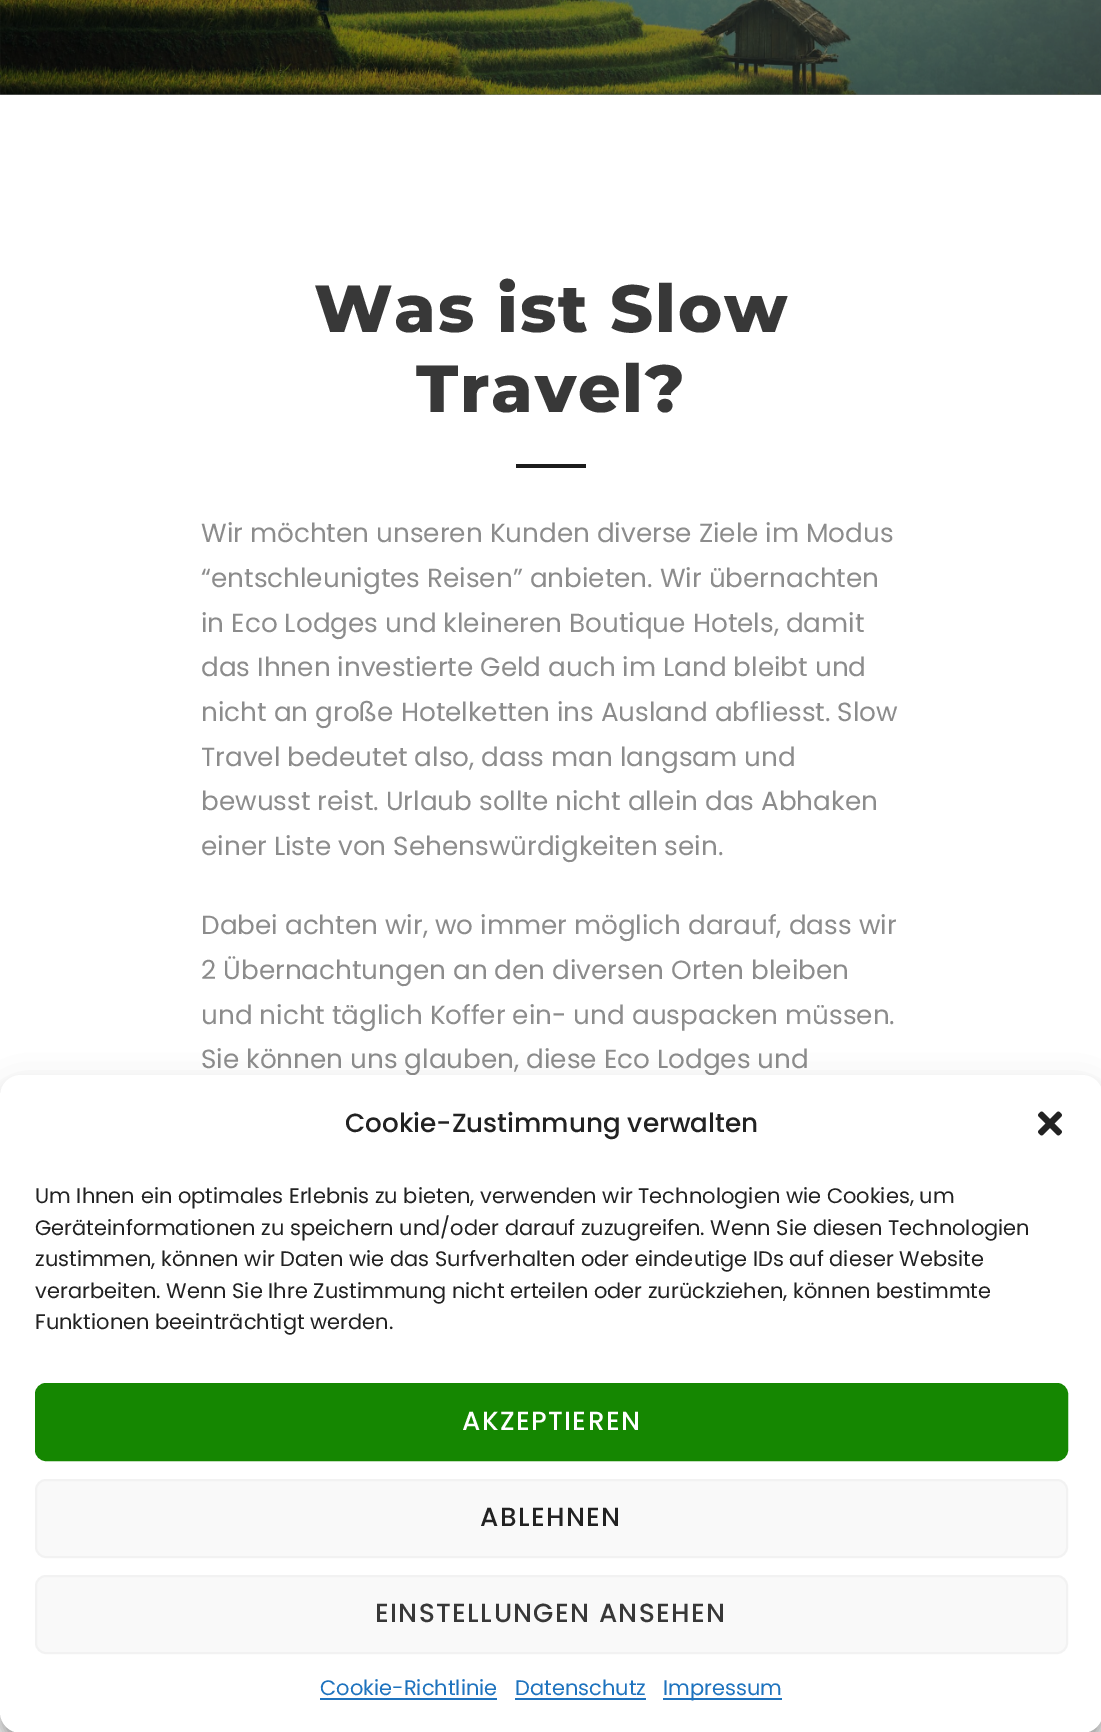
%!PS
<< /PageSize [1101 1732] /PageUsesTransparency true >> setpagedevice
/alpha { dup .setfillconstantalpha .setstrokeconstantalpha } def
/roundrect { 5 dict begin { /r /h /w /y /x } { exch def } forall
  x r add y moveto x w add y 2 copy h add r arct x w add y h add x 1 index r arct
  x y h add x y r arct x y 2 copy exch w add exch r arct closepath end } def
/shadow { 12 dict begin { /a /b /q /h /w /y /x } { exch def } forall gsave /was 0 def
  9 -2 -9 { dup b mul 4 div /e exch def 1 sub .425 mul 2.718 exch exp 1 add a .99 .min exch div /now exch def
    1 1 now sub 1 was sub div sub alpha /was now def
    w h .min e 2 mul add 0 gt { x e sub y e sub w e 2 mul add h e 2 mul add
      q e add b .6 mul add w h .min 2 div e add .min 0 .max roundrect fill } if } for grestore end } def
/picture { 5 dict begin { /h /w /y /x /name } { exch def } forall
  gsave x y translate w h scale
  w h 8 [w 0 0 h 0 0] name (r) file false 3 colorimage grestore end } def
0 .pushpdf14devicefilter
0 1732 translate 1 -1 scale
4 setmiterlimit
1 setgray
0 0 1101 1732 rectfill
0.502 setgray
0 94 1101 1 rectfill
(img1.rgb) 0 0 1101 95 picture
/Montserrat-ExtraBold [66.5 0 0 -66.5 0 0] selectfont
0.22 setgray
314 332 moveto 1.75 0 (Was ist Slow) ashow
416 412 moveto 1.75 0 (Travel?) ashow
0.11 setgray
516 464 70 4 rectfill
/Poppins-Regular [26.25 0 0 -26.25 0 0] selectfont
0.549 setgray
201 542 moveto (Wir möchten unseren Kunden diverse Ziele im Modus) show
201 587 moveto (“entschleunigtes Reisen” anbieten. Wir übernachten) show
201 632 moveto (in Eco Lodges und kleineren Boutique Hotels, damit) show
201 676 moveto (das Ihnen investierte Geld auch im Land bleibt und) show
201 721 moveto (nicht an große Hotelketten ins Ausland abfliesst. Slow) show
201 766 moveto (Travel bedeutet also, dass man langsam und) show
201 810 moveto (bewusst reist. Urlaub sollte nicht allein das Abhaken) show
201 855 moveto (einer Liste von Sehenswürdigkeiten sein.) show
201 934 moveto (Dabei achten wir, wo immer möglich darauf, dass wir) show
201 979 moveto (2 Übernachtungen an den diversen Orten bleiben) show
201 1024 moveto (und nicht täglich Koffer ein- und auspacken müssen.) show
201 1068 moveto (Sie können uns glauben, diese Eco Lodges und) show
0 setgray
0 1085 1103 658 21 5 0.23 shadow
0 1092 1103 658 21 17.5 0.19 shadow
1 setgray
0 1075 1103 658 21 roundrect fill
/Poppins-Medium [26.25 0 0 -26.25 0 0] selectfont
0.133 setgray
345 1132 moveto (Cookie-Zustimmung verwalten) show
(img2.rgb) 1038 1111 24 25 picture
/Poppins-Regular [21 0 0 -21 0 0] selectfont
35 1203 moveto (Um Ihnen ein optimales Erlebnis zu bieten, verwenden wir Technologien wie Cookies, um) show
35 1235 moveto (Geräteinformationen zu speichern und/oder darauf zuzugreifen. Wenn Sie diesen Technologien) show
35 1266 moveto (zustimmen, können wir Daten wie das Surfverhalten oder eindeutige IDs auf dieser Website) show
35 1298 moveto (verarbeiten. Wenn Sie Ihre Zustimmung nicht erteilen oder zurückziehen, können bestimmte) show
35 1329 moveto (Funktionen beeinträchtigt werden.) show
0.082 0.529 0.004 setrgbcolor
36 1384 1031 76 10 roundrect gsave fill grestore
2 setlinewidth
stroke
/Poppins-Medium [26.25 0 0 -26.25 0 0] selectfont
1 setgray
462 1430 moveto 1.4 0 (AKZEPTIEREN) ashow
0.976 setgray
36 1480 1031 77 10 roundrect gsave fill grestore
0.949 setgray
stroke
0.133 setgray
480 1526 moveto 1.4 0 (ABLEHNEN) ashow
0.976 setgray
36 1576 1031 77 10 roundrect gsave fill grestore
0.949 setgray
stroke
0.22 setgray
375 1622 moveto 1.4 0 (EINSTELLUNGEN ANSEHEN) ashow
/Poppins-Regular [21 0 0 -21 0 0] selectfont
0.118 0.451 0.745 setrgbcolor
320 1695 moveto (Cookie-Richtlinie) show
320 1698 177 2 rectfill
515 1695 moveto (Datenschutz) show
515 1698 131 2 rectfill
663 1698 119 2 rectfill
663 1695 moveto (Impressum) show
.poppdf14devicefilter showpage
